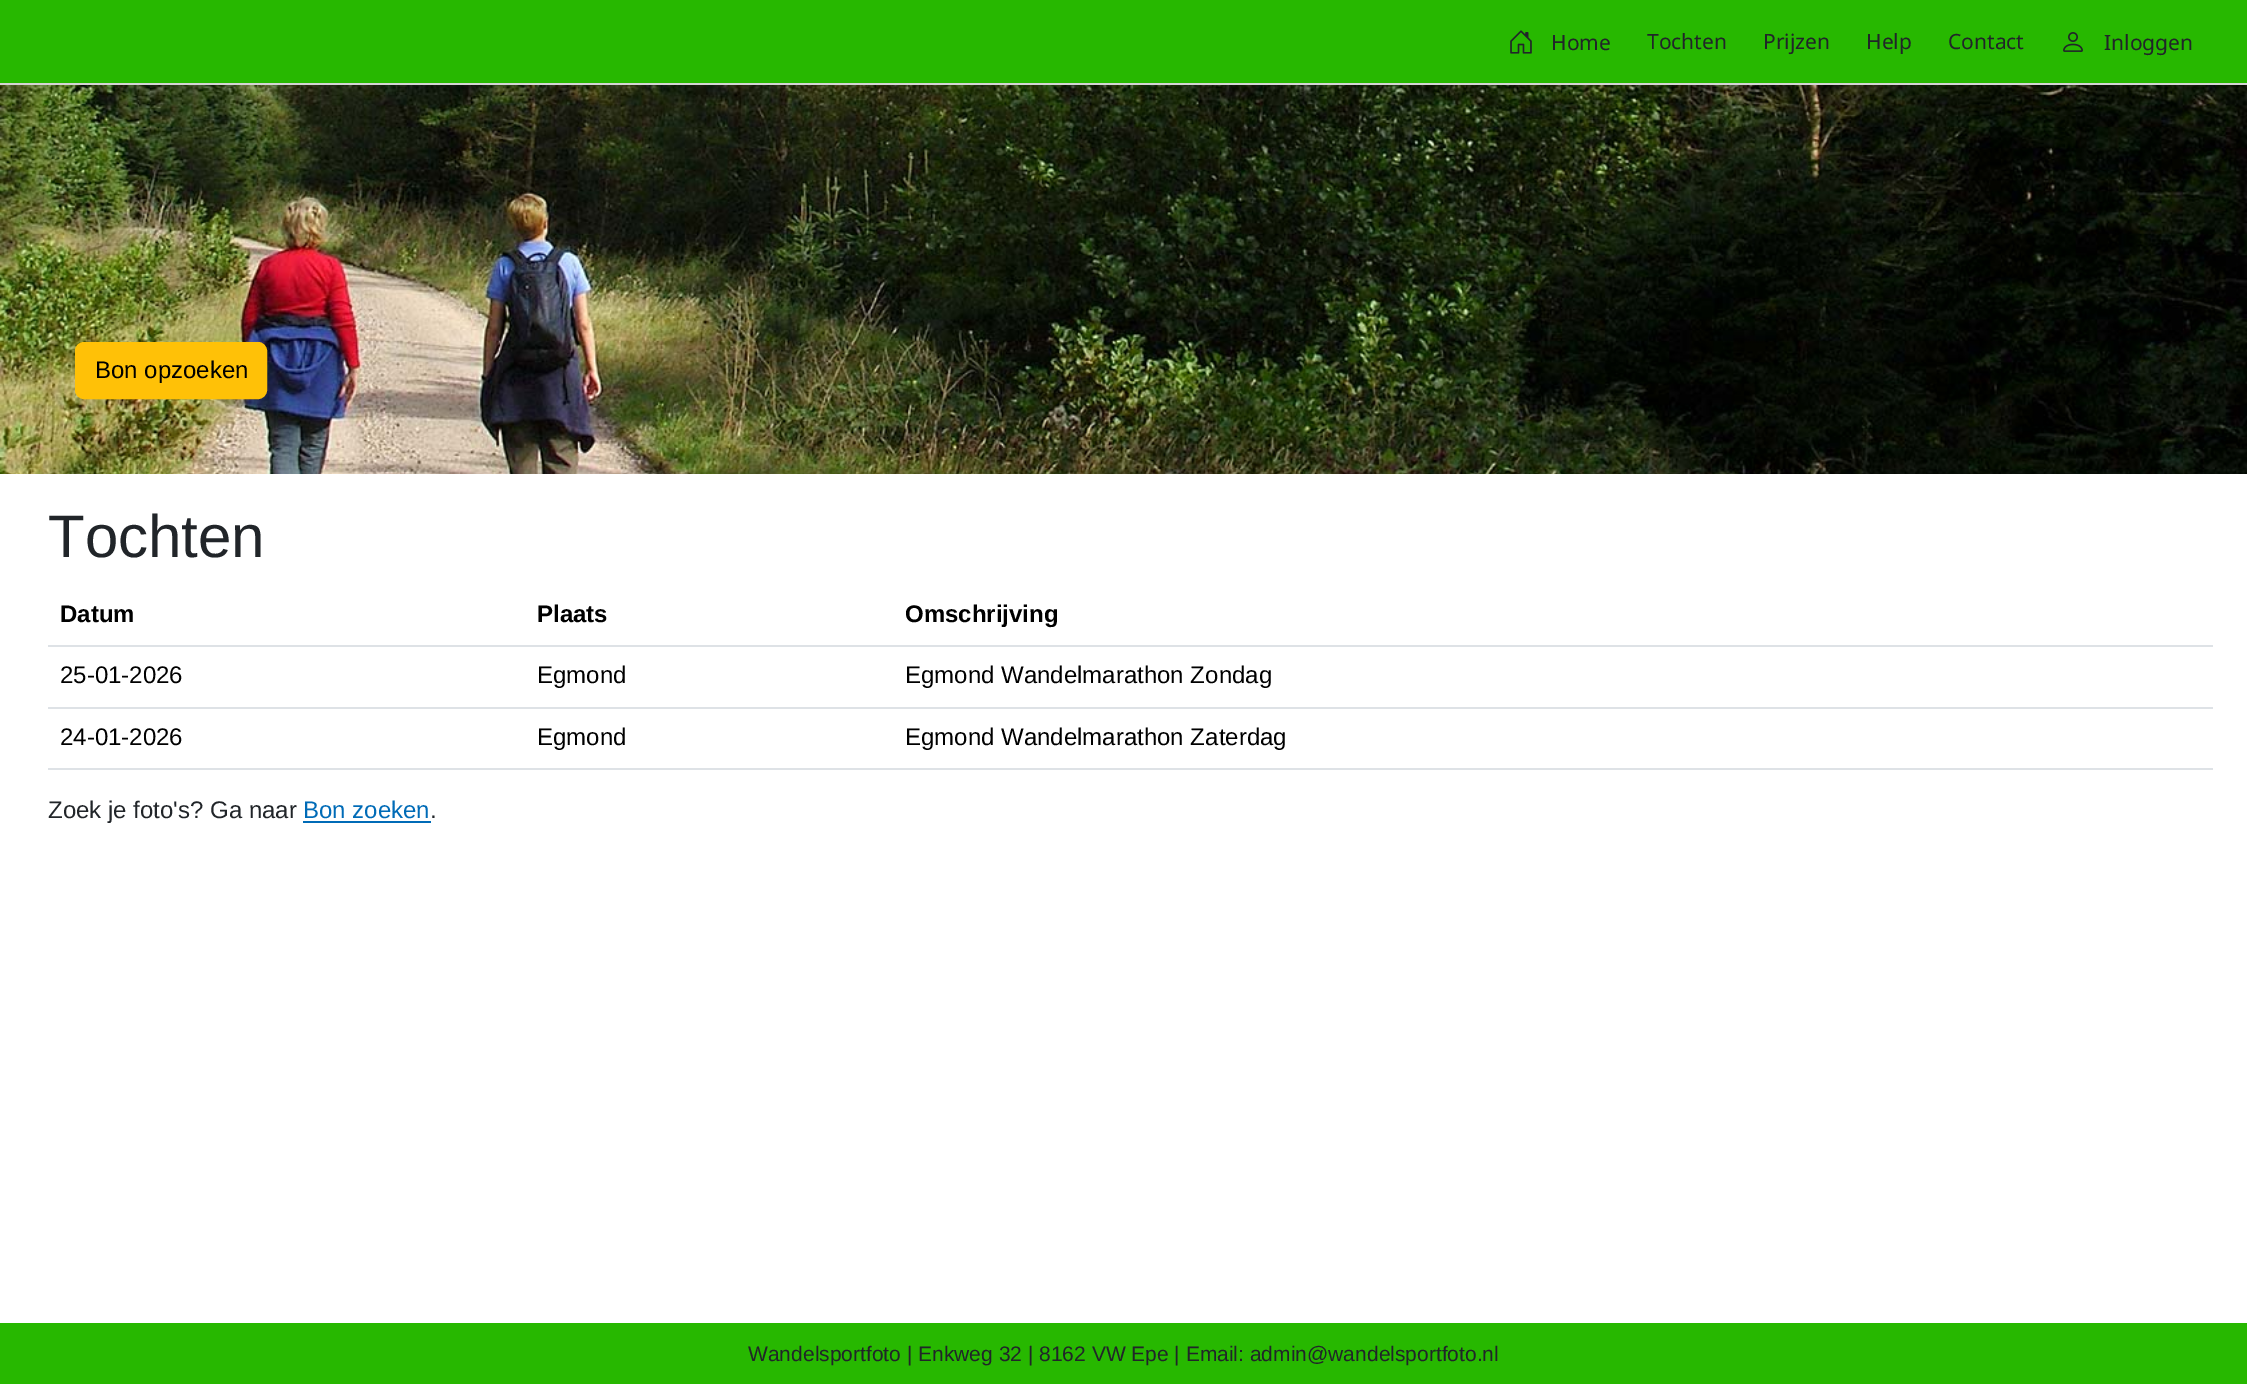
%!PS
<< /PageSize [2247 1384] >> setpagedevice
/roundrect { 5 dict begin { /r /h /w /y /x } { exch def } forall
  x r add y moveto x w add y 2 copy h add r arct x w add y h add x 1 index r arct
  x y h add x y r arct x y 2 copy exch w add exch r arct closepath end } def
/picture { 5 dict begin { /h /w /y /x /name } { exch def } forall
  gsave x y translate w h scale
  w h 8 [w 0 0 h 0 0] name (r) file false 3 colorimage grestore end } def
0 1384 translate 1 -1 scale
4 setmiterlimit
1 setgray
0 0 2247 1384 rectfill
0.153 0.722 0 setrgbcolor
0 0 2247 83 rectfill
0.839 0.835 0.835 setrgbcolor
0 83 2247 2 rectfill
(img1.rgb) 1510 30 22 24 picture
/NotoSans-Regular [21 0 0 -21 0 0] selectfont
0.129 0.145 0.161 setrgbcolor
1551 50 moveto (Home) show
1647 49 moveto (Tochten) show
1763 49 moveto (Prijzen) show
1866 49 moveto (Help) show
1948 49 moveto (Contact) show
(img2.rgb) 2063 32 20 20 picture
2104 50 moveto (Inloggen) show
(img3.rgb) 0 85 2247 389 picture
1 0.757 0.027 setrgbcolor
76 343 190 55 8 roundrect gsave fill grestore
2 setlinewidth
stroke
/LiberationSans-Regular [24 0 0 -24 0 0] selectfont
0 setgray
95 378 moveto (Bon opzoeken) show
/LiberationSans-Regular [60 0 0 -60 0 0] selectfont
0.129 0.145 0.161 setrgbcolor
48 557 moveto (Tochten) show
/LiberationSans-Bold [24 0 0 -24 0 0] selectfont
0 setgray
60 622 moveto (Datum) show
537 622 moveto (Plaats) show
0.871 0.886 0.902 setrgbcolor
48 645 2165 2 rectfill
0 setgray
905 622 moveto (Omschrijving) show
/LiberationSans-Regular [24 0 0 -24 0 0] selectfont
60 683 moveto (25-01-2026) show
537 683 moveto (Egmond) show
0.871 0.886 0.902 setrgbcolor
48 707 2165 2 rectfill
0 setgray
905 683 moveto (Egmond Wandelmarathon Zondag) show
60 745 moveto (24-01-2026) show
537 745 moveto (Egmond) show
0.871 0.886 0.902 setrgbcolor
48 768 2165 2 rectfill
0 setgray
905 745 moveto (Egmond Wandelmarathon Zaterdag) show
0.129 0.145 0.161 setrgbcolor
48 818 moveto (Zoek je foto's? Ga naar) show
0 0.42 0.718 setrgbcolor
303 818 moveto (Bon zoeken) show
303 821 128 2 rectfill
0.129 0.145 0.161 setrgbcolor
430 818 moveto (.) show
0.153 0.722 0 setrgbcolor
0 1323 2247 61 rectfill
/LiberationSans-Regular [21 0 0 -21 0 0] selectfont
0.129 0.145 0.161 setrgbcolor
748 1361 moveto (Wandelsportfoto | Enkweg 32 | 8162 VW Epe | Email: admin@wandelsportfoto.nl) show
showpage
